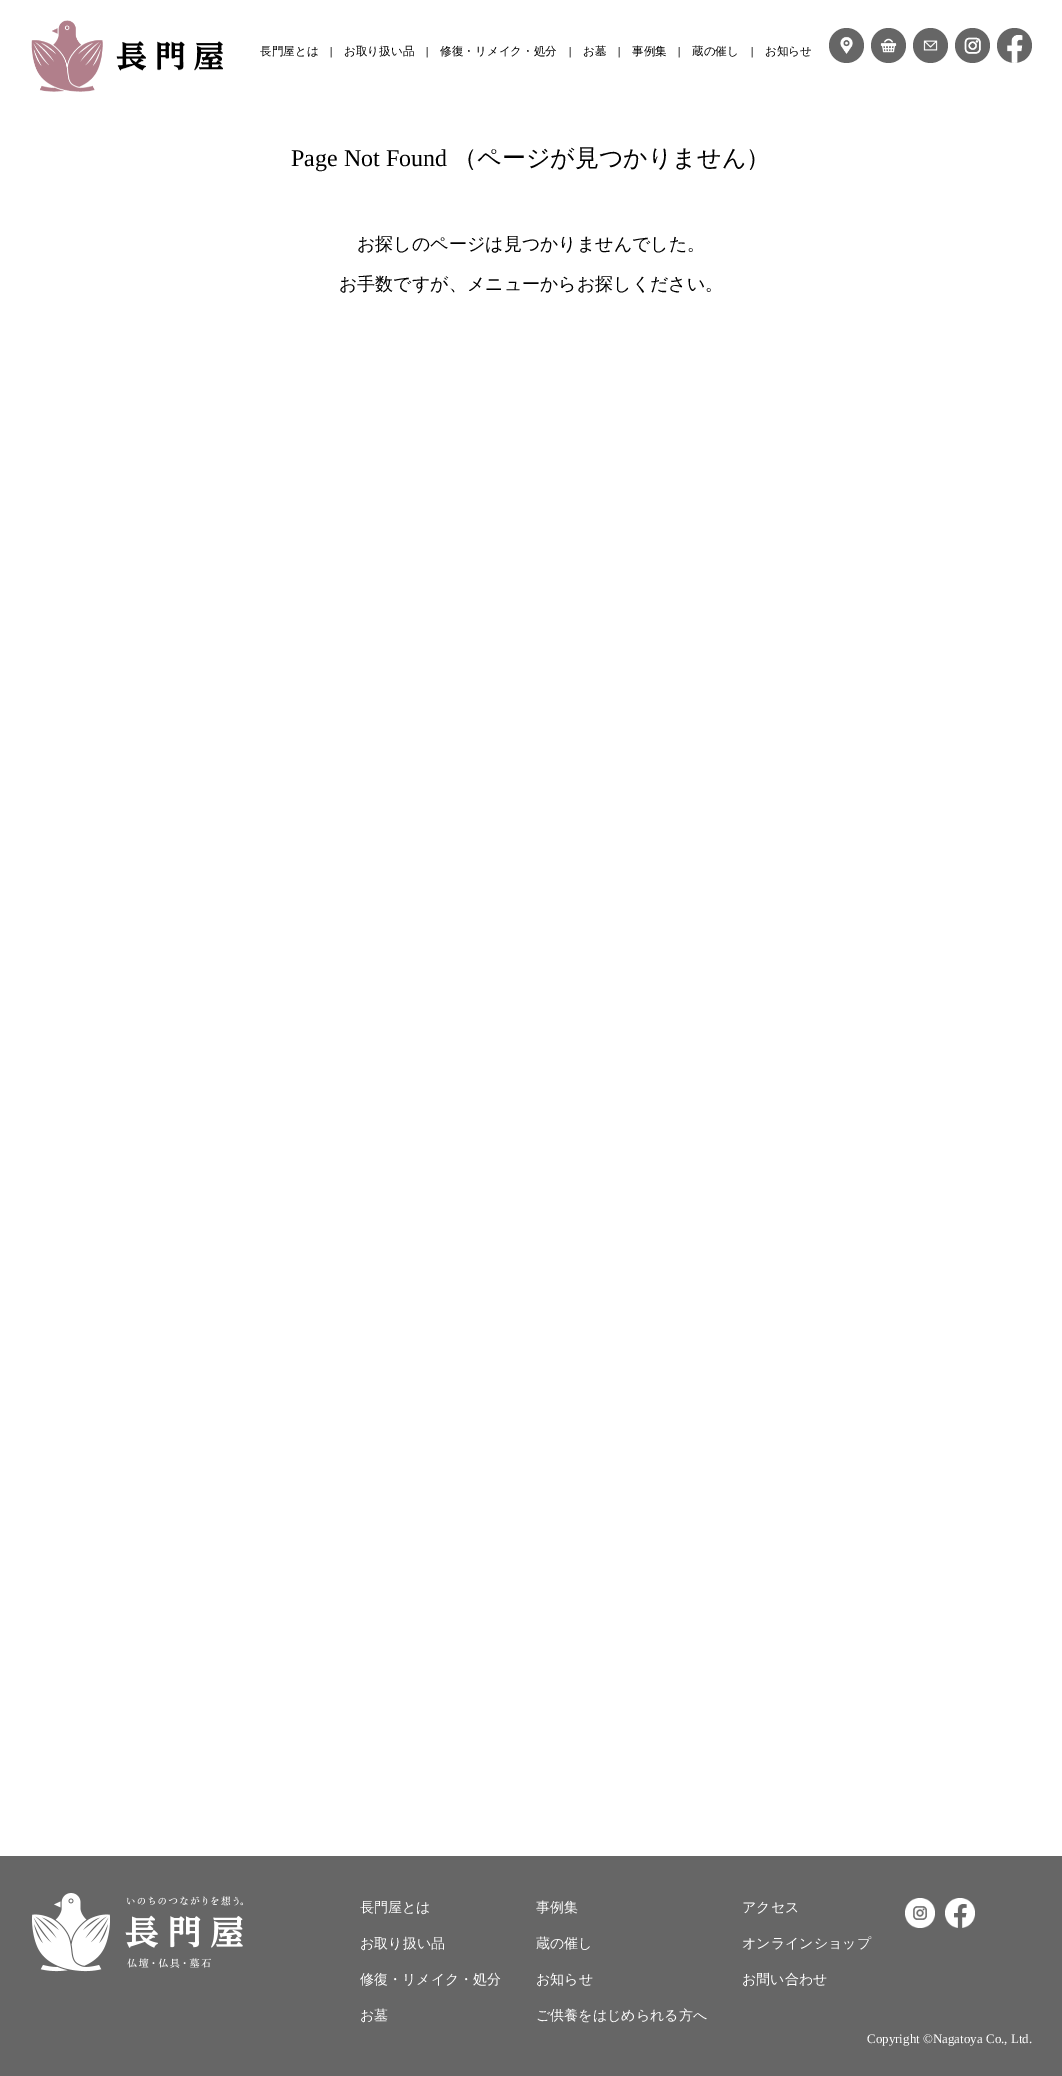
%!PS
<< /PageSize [1062 2076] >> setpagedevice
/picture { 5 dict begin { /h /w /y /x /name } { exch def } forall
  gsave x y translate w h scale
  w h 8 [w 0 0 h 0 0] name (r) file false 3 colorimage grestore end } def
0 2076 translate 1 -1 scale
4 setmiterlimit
1 setgray
0 0 1062 2076 rectfill
(img1.rgb) 31 20 192 72 picture
/WenQuanYiZenHei-Medium [11.6 0 0 -11.6 0 0] selectfont
0 setgray
260 55 moveto (長門屋とは) show
/LiberationSerif-Regular [11.6 0 0 -11.6 0 0] selectfont
330 55 moveto (|) show
/WenQuanYiZenHei-Medium [11.6 0 0 -11.6 0 0] selectfont
344 55 moveto (お取り扱い品) show
/LiberationSerif-Regular [11.6 0 0 -11.6 0 0] selectfont
426 55 moveto (|) show
/WenQuanYiZenHei-Medium [11.6 0 0 -11.6 0 0] selectfont
440 55 moveto (修復・リメイク・処分) show
/LiberationSerif-Regular [11.6 0 0 -11.6 0 0] selectfont
569 55 moveto (|) show
/WenQuanYiZenHei-Medium [11.6 0 0 -11.6 0 0] selectfont
583 55 moveto (お墓) show
/LiberationSerif-Regular [11.6 0 0 -11.6 0 0] selectfont
618 55 moveto (|) show
/WenQuanYiZenHei-Medium [11.6 0 0 -11.6 0 0] selectfont
632 55 moveto (事例集) show
/LiberationSerif-Regular [11.6 0 0 -11.6 0 0] selectfont
678 55 moveto (|) show
/WenQuanYiZenHei-Medium [11.6 0 0 -11.6 0 0] selectfont
692 55 moveto (蔵の催し) show
/LiberationSerif-Regular [11.6 0 0 -11.6 0 0] selectfont
751 55 moveto (|) show
/WenQuanYiZenHei-Medium [11.6 0 0 -11.6 0 0] selectfont
765 55 moveto (お知らせ) show
0.4 setgray
newpath 846.5 45.5 17.5 0 360 arc closepath fill
(img2.rgb) 840 36 13 18 picture
newpath 888.5 45.5 17.5 0 360 arc closepath fill
(img3.rgb) 880 38 17 15 picture
newpath 930.5 45.5 17.5 0 360 arc closepath fill
(img4.rgb) 923 40 15 11 picture
newpath 972.5 45.5 17.5 0 360 arc closepath fill
(img5.rgb) 964 37 17 17 picture
newpath 1014.5 45.5 17.5 0 360 arc closepath fill
(img6.rgb) 1007 35 16 28 picture
/LiberationSerif-Regular [24 0 0 -24 0 0] selectfont
0 setgray
291 166 moveto (Page Not Found) show
/WenQuanYiZenHei-Medium [24 0 0 -24 0 0] selectfont
453 166 moveto (（ページが見つかりません）) show
/WenQuanYiZenHei-Medium [18 0 0 -18 0 0] selectfont
357 250 moveto (お探しのページは見つかりませんでした。) show
339 290 moveto (お手数ですが、メニューからお探しください。) show
0.4 setgray
0 1856 1062 220 rectfill
(img7.rgb) 32 1893 211 79 picture
/WenQuanYiZenHei-Medium [14 0 0 -14 0 0] selectfont
1 setgray
360 1912 moveto (長門屋とは) show
536 1912 moveto (事例集) show
742 1912 moveto (アクセス) show
(img8.rgb) 905 1898 30 30 picture
(img9.rgb) 945 1898 30 30 picture
360 1948 moveto (お取り扱い品) show
536 1948 moveto (蔵の催し) show
742 1948 moveto (オンラインショップ) show
360 1984 moveto (修復・リメイク・処分) show
536 1984 moveto (お知らせ) show
742 1984 moveto (お問い合わせ) show
360 2020 moveto (お墓) show
536 2020 moveto (ご供養をはじめられる方へ) show
/LiberationSerif-Regular [13 0 0 -13 0 0] selectfont
867 2043 moveto (Copyright ©Nagatoya Co., Ltd.) show
showpage
